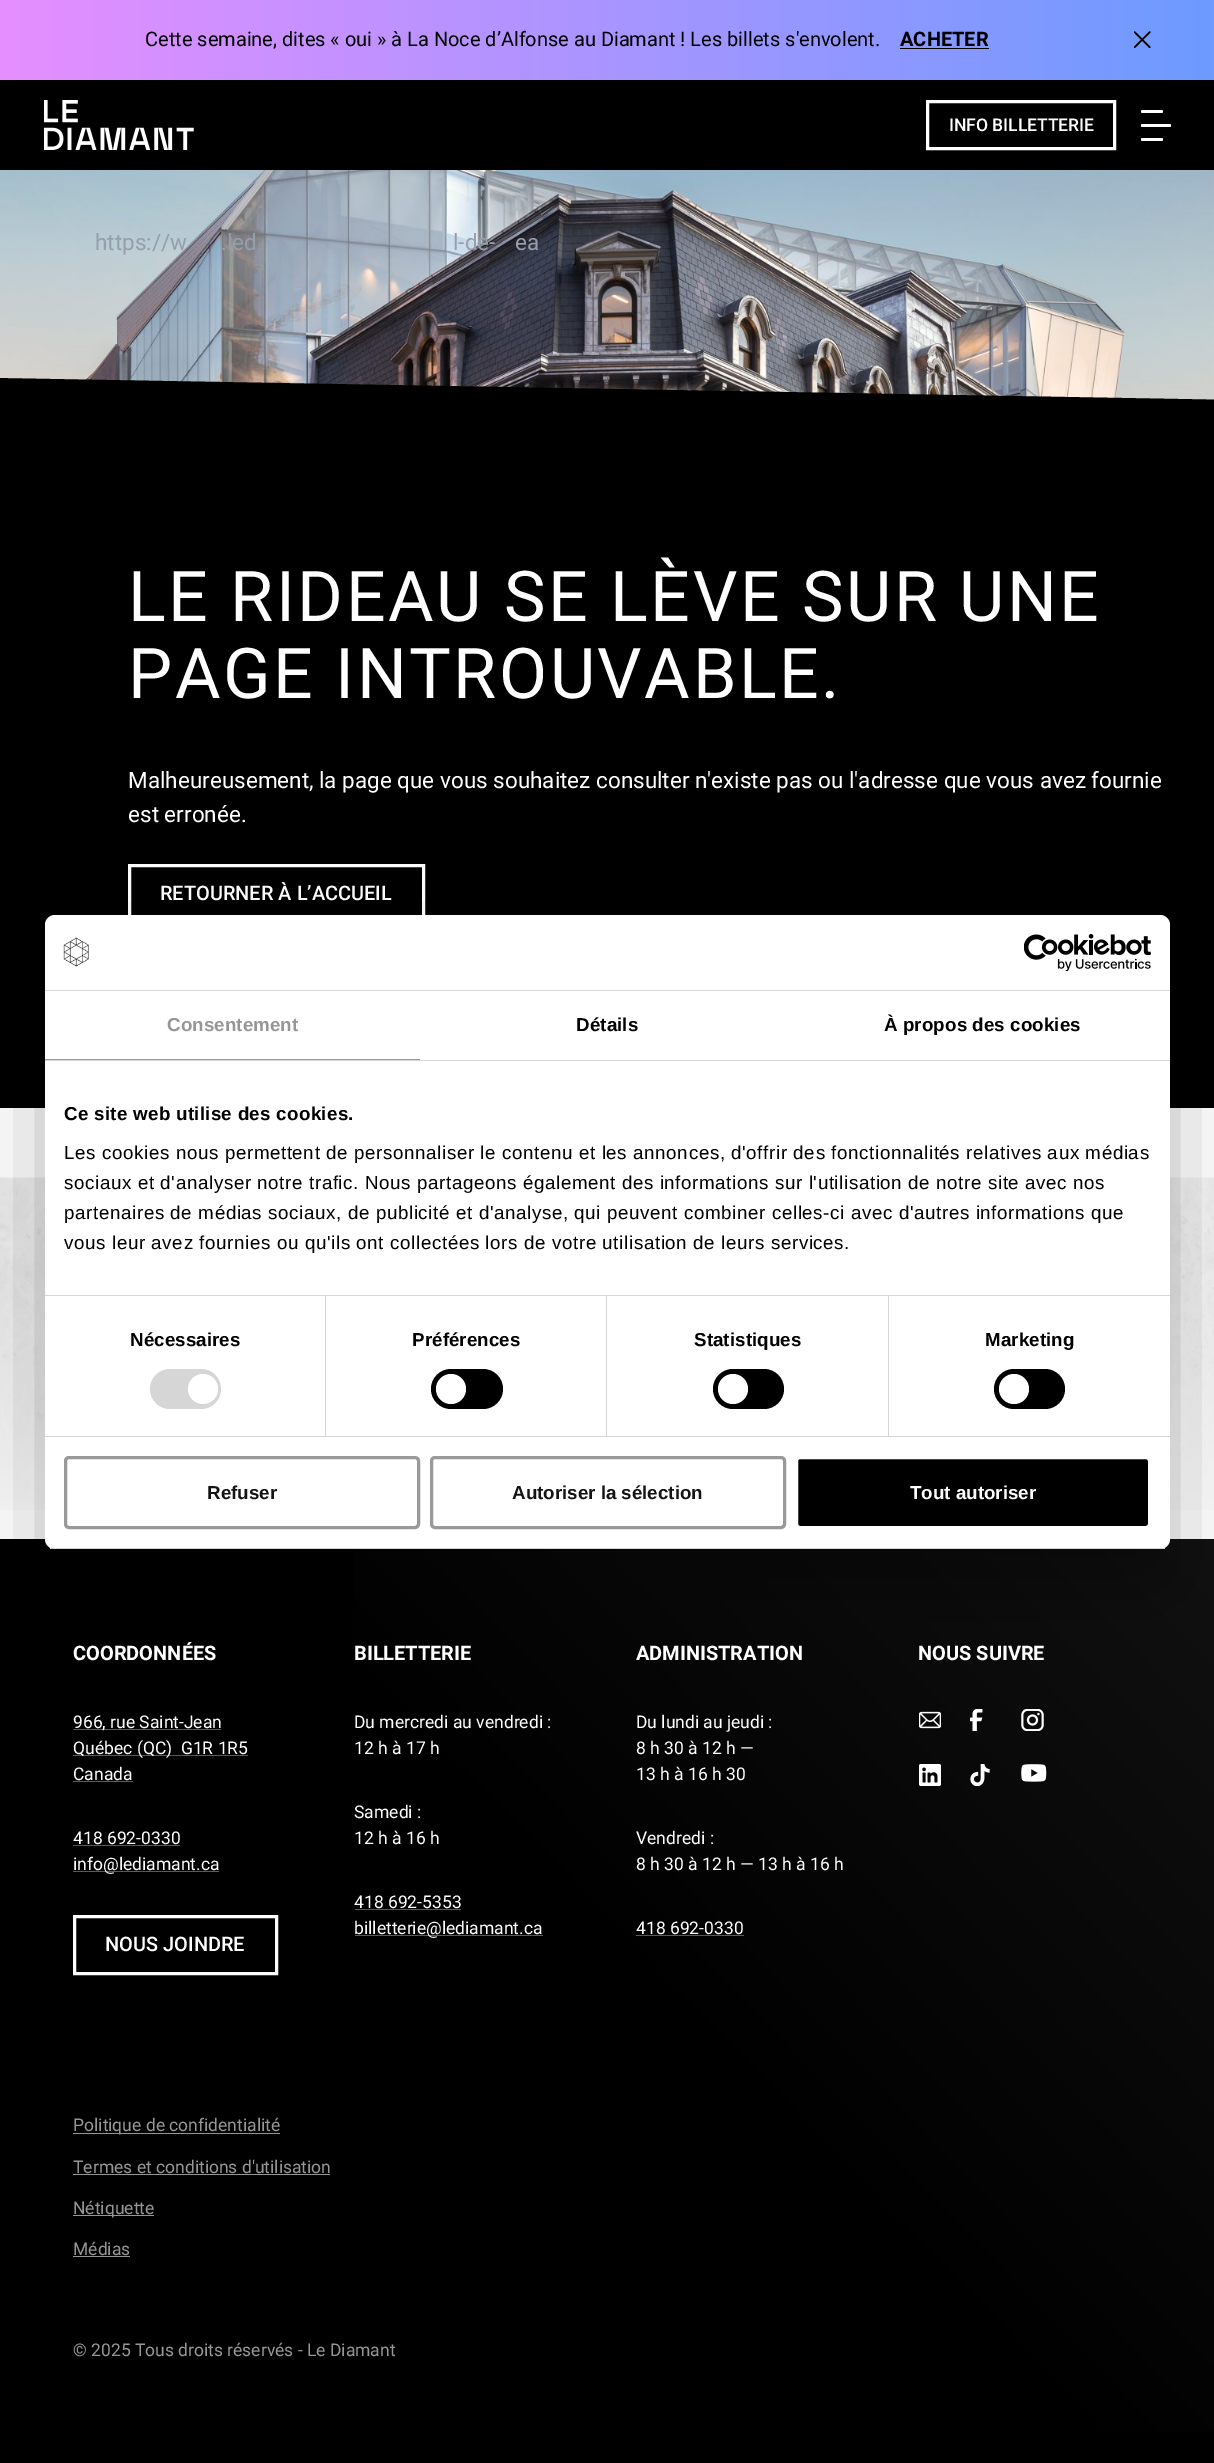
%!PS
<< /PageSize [1214 2463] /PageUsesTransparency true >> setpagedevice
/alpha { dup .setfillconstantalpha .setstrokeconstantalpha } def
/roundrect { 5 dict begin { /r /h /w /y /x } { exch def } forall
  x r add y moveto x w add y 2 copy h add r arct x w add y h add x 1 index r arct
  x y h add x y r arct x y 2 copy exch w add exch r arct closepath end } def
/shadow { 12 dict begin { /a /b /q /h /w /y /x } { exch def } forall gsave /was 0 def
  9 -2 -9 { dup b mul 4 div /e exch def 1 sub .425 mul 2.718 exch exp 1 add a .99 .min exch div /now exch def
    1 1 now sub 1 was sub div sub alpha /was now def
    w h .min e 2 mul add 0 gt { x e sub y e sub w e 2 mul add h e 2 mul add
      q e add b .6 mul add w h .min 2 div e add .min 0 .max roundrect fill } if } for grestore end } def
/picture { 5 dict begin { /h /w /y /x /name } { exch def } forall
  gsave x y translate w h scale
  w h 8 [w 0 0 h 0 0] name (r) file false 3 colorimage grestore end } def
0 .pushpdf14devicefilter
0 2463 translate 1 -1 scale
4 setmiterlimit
0 setgray
0 0 1214 2463 rectfill
gsave newpath 0 0 moveto 1214 0 lineto 1214 80 lineto 0 80 lineto closepath clip newpath
<< /ShadingType 2 /ColorSpace /DeviceRGB /Coords [0 40 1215 40] /Extend [true true] /Function << /FunctionType 2 /Domain [0 1] /C0 [0.902 0.557 1] /C1 [0.427 0.608 1] /N 1 >> >> shfill grestore
/Roboto-Regular [20 0 0 -20 0 0] selectfont
145 46 moveto (Cette semaine, dites « oui » à La Noce d’Alfonse au Diamant ! Les billets s'envolent.) show
/Roboto-Bold [20 0 0 -20 0 0] selectfont
900 46 moveto (ACHETER) show
900 48 89 1 rectfill
(img1.rgb) 1134 31 17 18 picture
(img2.rgb) 44 100 150 50 picture
1 setgray
3 setlinewidth
927.5 101.5 187 47 rectstroke
/Roboto-Medium [17.5 0 0 -17.5 0 0] selectfont
949 131 moveto (INFO BILLETTERIE) show
1141 110 22 3 1.5 roundrect fill
1141 124 30 3 1.5 roundrect fill
1141 138 22 3 1.5 roundrect fill
(img3.rgb) 0 170 1214 230 picture
/Roboto-Regular [22.5 0 0 -22.5 0 0] selectfont
0.584 0.624 0.671 setrgbcolor
95 250 moveto (https://w) show
221 250 moveto (.led) show
453 250 moveto (l-de-) show
515 250 moveto (ea) show
1 setgray
0 1108 1214 431 rectfill
gsave
0 170 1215 250 rectclip
0 setgray
newpath -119 376 moveto 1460 404 lineto 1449 1029 lineto -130 1001 lineto closepath fill
grestore
/Roboto-Regular [70 0 0 -70 0 0] selectfont
128 621 moveto 2.5 0 (LE RIDEAU SE LÈVE SUR UNE) ashow
128 698 moveto 2.5 0 (PAGE INTROUVABLE.) ashow
/Roboto-Regular [22.5 0 0 -22.5 0 0] selectfont
128 788 moveto (Malheureusement, la page que vous souhaitez consulter n'existe pas ou l'adresse que vous avez fournie) show
128 822 moveto (est erronée.) show
129.5 865.5 294 57 rectstroke
/Roboto-Medium [20 0 0 -20 0 0] selectfont
160 900 moveto (RETOURNER À L’ACCUEIL) show
(img6.rgb) 0 1177 1214 333 picture
gsave newpath 353 1539 moveto 1214 1539 lineto 1214 2432 lineto 353 2432 lineto closepath clip newpath
<< /ShadingType 2 /ColorSpace /DeviceRGB /Coords [1153 1475 62 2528] /Extend [true true] /Function << /FunctionType 3 /Domain [0 1] /Functions [<< /FunctionType 2 /Domain [0 1] /C0 [0.067 0.067 0.067] /C1 [0 0 0] /N 1 >> << /FunctionType 2 /Domain [0 1] /C0 [0 0 0] /C1 [0 0 0] /N 1 >>] /Bounds [0.48] /Encode [0 1 0 1] >> >> shfill grestore
(img7.rgb) 919 1711 22 18 picture
(img8.rgb) 970 1709 13 22 picture
(img9.rgb) 1021 1709 23 22 picture
0 setgray
45 955 1125 634 10 42.5 0.3 shadow
1 setgray
45 915 1125 634 10 roundrect fill
0.839 setgray
45 990 1125 1 rectfill
(img4.rgb) 63 937 26 30 picture
(img5.rgb) 1024 934 127 37 picture
45 1060 1125 1 rectfill
0.6 setgray
45 1059 375 1 rectfill
/LiberationSans-Bold [18.75 0 0 -18.75 0 0] selectfont
0.588 setgray
167 1031 moveto 0.1 0 (Consentement) ashow
0 setgray
576 1031 moveto 0.1 0 (Détails) ashow
884 1031 moveto 0.1 0 (À propos des cookies) ashow
0.839 setgray
45 1295 1125 1 rectfill
0 setgray
64 1120 moveto 0.3 0 (Ce site web utilise des cookies.) ashow
/LiberationSans-Regular [18.75 0 0 -18.75 0 0] selectfont
64 1159 moveto 0.62 0 (Les cookies nous permettent de personnaliser le contenu et les annonces, d'offrir des fonctionnalités relatives aux médias) ashow
64 1189 moveto 0.62 0 (sociaux et d'analyser notre trafic. Nous partageons également des informations sur l'utilisation de notre site avec nos) ashow
64 1219 moveto 0.62 0 (partenaires de médias sociaux, de publicité et d'analyse, qui peuvent combiner celles-ci avec d'autres informations que) ashow
64 1249 moveto 0.62 0 (vous leur avez fournies ou qu'ils ont collectées lors de votre utilisation de leurs services.) ashow
0.839 setgray
45 1436 1125 1 rectfill
325 1296 1 140 rectfill
/LiberationSans-Bold [18.75 0 0 -18.75 0 0] selectfont
0 setgray
130 1346 moveto 0.1 0 (Nécessaires) ashow
0.839 setgray
150 1369 71 40 20 roundrect fill
1 setgray
newpath 203 1389 15 0 360 arc closepath fill
0.839 setgray
606 1296 1 140 rectfill
0 setgray
412 1346 moveto 0.1 0 (Préférences) ashow
431 1369 72 40 20 roundrect fill
1 setgray
newpath 451 1389 15 0 360 arc closepath fill
0.839 setgray
888 1296 1 140 rectfill
0 setgray
694 1346 moveto 0.1 0 (Statistiques) ashow
713 1369 71 40 20 roundrect fill
1 setgray
newpath 733 1389 15 0 360 arc closepath fill
0 setgray
985 1346 moveto 0.1 0 (Marketing) ashow
994 1369 71 40 20 roundrect fill
1 setgray
newpath 1014 1389 15 0 360 arc closepath fill
gsave
45 915 1125 634 10 roundrect clip newpath
0.839 setgray
45 1548 1125 1 rectfill
grestore
0.6 setgray
65.5 1457.5 353 70 3.5 roundrect stroke
0.078 setgray
207 1499 moveto (Refuser) show
0.6 setgray
431.5 1457.5 353 70 3.5 roundrect stroke
0.078 setgray
512 1499 moveto (Autoriser la sélection) show
0 setgray
796.5 1457.5 353 70 3.5 roundrect gsave fill grestore
1 setgray
stroke
910 1499 moveto (Tout autoriser) show
/Roboto-Bold [20 0 0 -20 0 0] selectfont
73 1660 moveto (COORDONNÉES) show
0.353 setgray
73 1729 148 1 rectfill
/Roboto-Regular [17.5 0 0 -17.5 0 0] selectfont
1 setgray
73 1728 moveto (966, rue Saint-Jean) show
0.353 setgray
73 1755 175 1 rectfill
1 setgray
73 1754 moveto (Québec \(QC\)  G1R 1R5) show
73 1780 moveto (Canada) show
0.353 setgray
73 1781 60 1 rectfill
1 setgray
73 1844 moveto (418 692-0330) show
0.353 setgray
73 1845 107 1 rectfill
73 1871 146 1 rectfill
1 setgray
73 1870 moveto (info@lediamant.ca) show
74.5 1916.5 202 57 rectstroke
/Roboto-Medium [20 0 0 -20 0 0] selectfont
105 1951 moveto (NOUS JOINDRE) show
/Roboto-Bold [20 0 0 -20 0 0] selectfont
354 1660 moveto (BILLETTERIE) show
/Roboto-Regular [17.5 0 0 -17.5 0 0] selectfont
354 1728 moveto (Du mercredi au vendredi :) show
354 1754 moveto (12 h à 17 h) show
354 1818 moveto (Samedi :) show
354 1844 moveto (12 h à 16 h) show
354 1908 moveto (418 692-5353) show
0.353 setgray
355 1909 106 1 rectfill
355 1935 188 1 rectfill
1 setgray
354 1934 moveto (billetterie@lediamant.ca) show
/Roboto-Bold [20 0 0 -20 0 0] selectfont
636 1660 moveto (ADMINISTRATION) show
/Roboto-Regular [17.5 0 0 -17.5 0 0] selectfont
636 1728 moveto (Du lundi au jeudi :) show
636 1754 moveto (8 h 30 à 12 h —) show
636 1780 moveto (13 h à 16 h 30) show
636 1844 moveto (Vendredi :) show
636 1870 moveto (8 h 30 à 12 h — 13 h à 16 h) show
636 1934 moveto (418 692-0330) show
0.353 setgray
636 1935 108 1 rectfill
/Roboto-Bold [20 0 0 -20 0 0] selectfont
1 setgray
918 1660 moveto (NOUS SUIVRE) show
(img10.rgb) 919 1764 22 22 picture
(img11.rgb) 970 1764 20 22 picture
(img12.rgb) 1021 1764 26 18 picture
0.588 setgray
73 2133 207 1 rectfill
/Roboto-Regular [17.5 0 0 -17.5 0 0] selectfont
73 2131 moveto (Politique de confidentialité) show
73 2173 moveto (Termes et conditions d'utilisation) show
73 2174 257 1 rectfill
73 2215 81 1 rectfill
73 2214 moveto (Nétiquette) show
73 2255 moveto (Médias) show
73 2256 57 1 rectfill
73 2356 moveto (© 2025 Tous droits réservés - Le Diamant) show
.poppdf14devicefilter showpage
